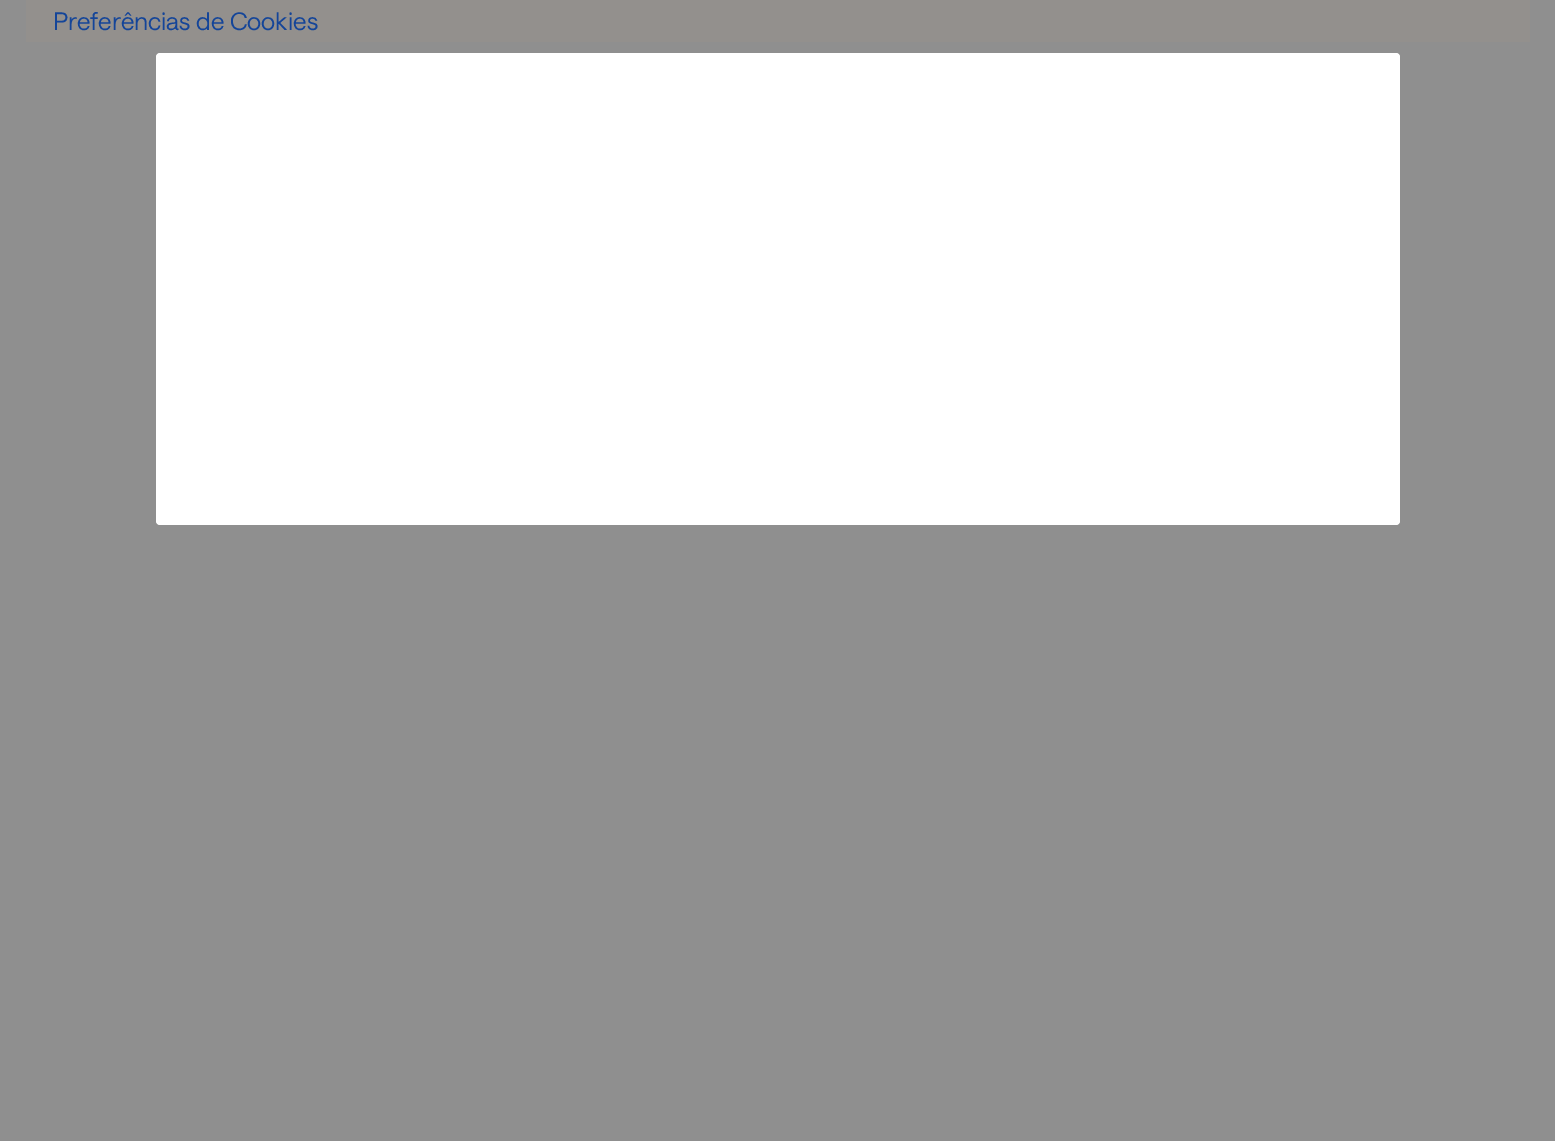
%!PS
<< /PageSize [1555 1141] >> setpagedevice
/roundrect { 5 dict begin { /r /h /w /y /x } { exch def } forall
  x r add y moveto x w add y 2 copy h add r arct x w add y h add x 1 index r arct
  x y h add x y r arct x y 2 copy exch w add exch r arct closepath end } def
0 1141 translate 1 -1 scale
4 setmiterlimit
0.561 setgray
0 0 1555 1141 rectfill
0.576 0.565 0.553 setrgbcolor
26 0 1504 42 rectfill
/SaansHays-Regular [24.5 0 0 -24.5 0 0] selectfont
0.078 0.271 0.6 setrgbcolor
53 30 moveto (Preferências de Cookies) show
1 setgray
156 53 1244 472 4 roundrect fill
showpage
